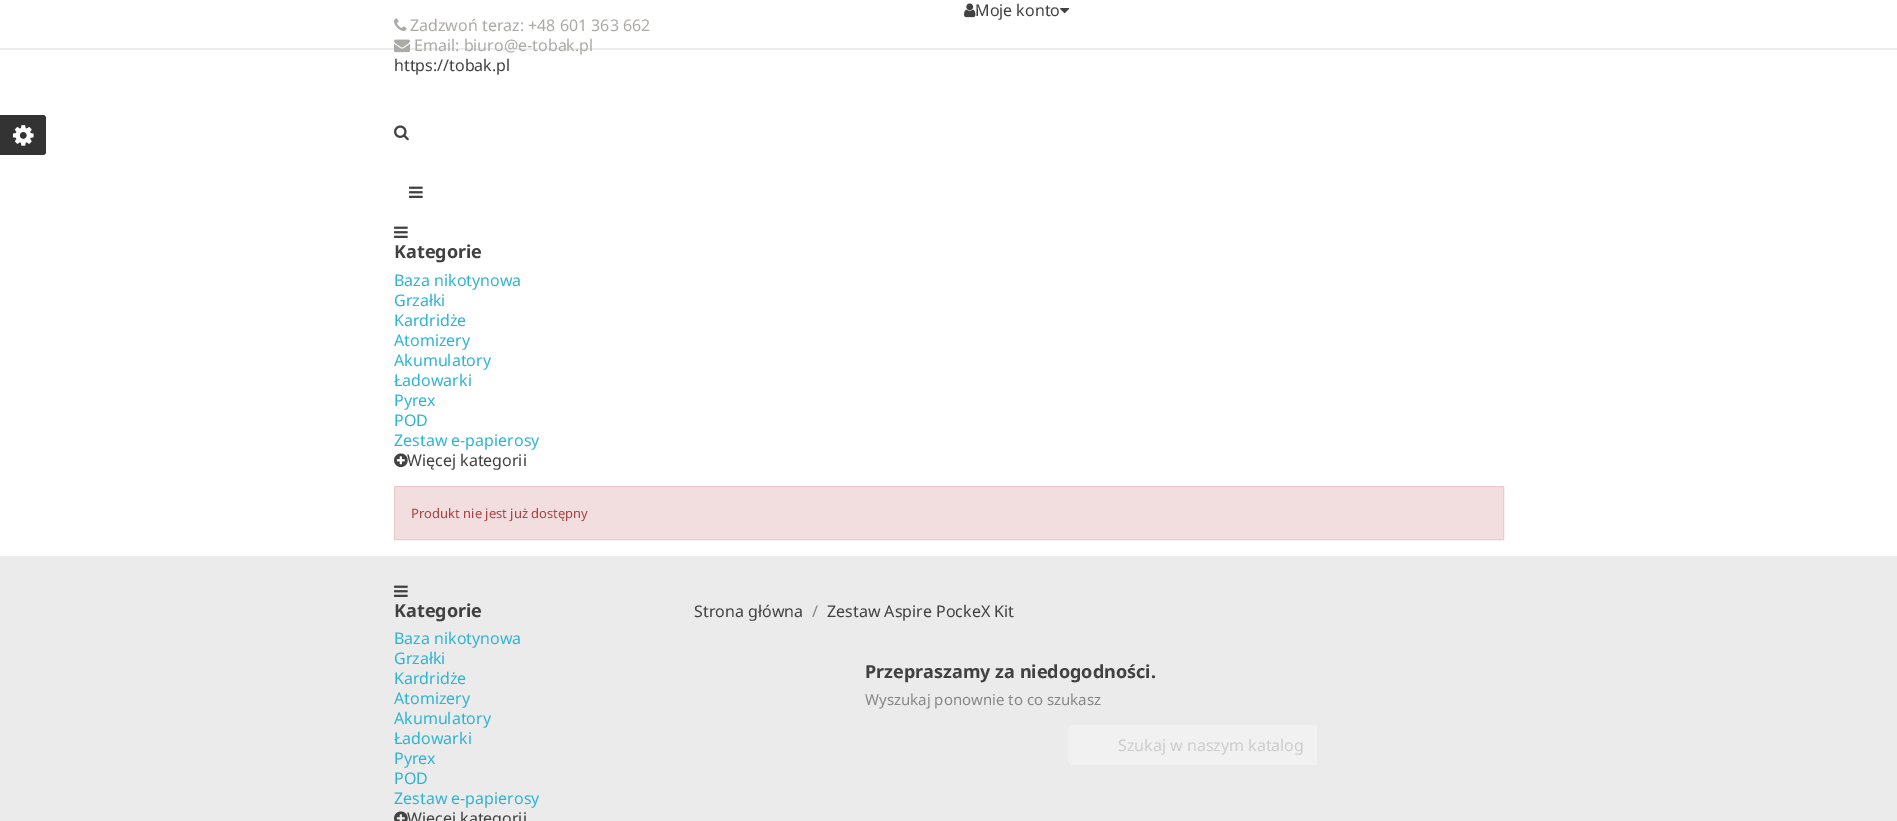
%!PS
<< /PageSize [1897 821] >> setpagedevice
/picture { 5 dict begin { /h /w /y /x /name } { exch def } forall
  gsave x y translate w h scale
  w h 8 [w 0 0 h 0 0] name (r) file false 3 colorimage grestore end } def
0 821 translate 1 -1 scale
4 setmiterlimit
1 setgray
0 0 1897 821 rectfill
0.2 setgray
newpath 0 115 moveto 43 115 lineto 44.5 115 46 116.5 46 118 curveto 46 152 lineto 46 153.5 44.5 155 43 155 curveto 0 155 lineto closepath fill
(img1.rgb) 13 125 21 21 picture
0.922 setgray
0 48 1897 2 rectfill
(img2.rgb) 964 3 12 15 picture
/NotoSans-Regular [16 0 0 -16 0 0] selectfont
0.255 setgray
975 16 moveto (Moje konto) show
(img3.rgb) 1060 8 10 6 picture
(img4.rgb) 394 18 13 13 picture
0.675 0.667 0.651 setrgbcolor
410 31 moveto (Zadzwoń teraz: +48 601 363 662) show
(img5.rgb) 394 39 16 14 picture
414 51 moveto (Email: biuro@e-tobak.pl) show
0.255 setgray
394 71 moveto (https://tobak.pl) show
(img6.rgb) 394 125 15 16 picture
(img7.rgb) 409 186 14 12 picture
(img7.rgb) 394 226 14 12 picture
/NotoSans-Bold [18 0 0 -18 0 0] selectfont
394 258 moveto (Kategorie) show
/NotoSans-Regular [16 0 0 -16 0 0] selectfont
0.184 0.71 0.824 setrgbcolor
394 286 moveto (Baza nikotynowa) show
394 306 moveto (Grzałki) show
394 326 moveto (Kardridże) show
394 346 moveto (Atomizery) show
394 366 moveto (Akumulatory) show
394 386 moveto (Ładowarki) show
394 406 moveto (Pyrex) show
394 426 moveto (POD) show
394 446 moveto (Zestaw e-papierosy) show
(img8.rgb) 394 453 14 15 picture
0.255 setgray
407 466 moveto (Więcej kategorii) show
0.949 0.871 0.871 setrgbcolor
newpath 394.5 486.5 moveto 1503.5 486.5 lineto 1503.5 539.5 lineto 394.5 539.5 lineto closepath gsave fill grestore
0.922 0.8 0.8 setrgbcolor
stroke
/NotoSans-Regular [13 0 0 -13 0 0] selectfont
0.663 0.267 0.259 setrgbcolor
411 518 moveto (Produkt nie jest już dostępny) show
0.922 setgray
0 556 1897 265 rectfill
(img9.rgb) 394 585 14 12 picture
/NotoSans-Bold [18 0 0 -18 0 0] selectfont
0.255 setgray
394 617 moveto (Kategorie) show
/NotoSans-Regular [16 0 0 -16 0 0] selectfont
0.184 0.71 0.824 setrgbcolor
394 644 moveto (Baza nikotynowa) show
394 664 moveto (Grzałki) show
394 684 moveto (Kardridże) show
394 704 moveto (Atomizery) show
394 724 moveto (Akumulatory) show
394 744 moveto (Ładowarki) show
394 764 moveto (Pyrex) show
394 784 moveto (POD) show
394 804 moveto (Zestaw e-papierosy) show
(img10.rgb) 394 811 14 10 picture
0.255 setgray
407 824 moveto (Więcej kategorii) show
694 617 moveto (Strona główna) show
0.529 setgray
812 617 moveto (/) show
0.255 setgray
827 617 moveto (Zestaw Aspire PockeX Kit) show
/NotoSans-Bold [18 0 0 -18 0 0] selectfont
865 678 moveto (Przepraszamy za niedogodności.) show
/NotoSans-Regular [15 0 0 -15 0 0] selectfont
0.529 setgray
865 705 moveto (Wyszukaj ponownie to co szukasz) show
0.945 setgray
newpath 1073 725 moveto 1317 725 lineto 1317 765 lineto 1073 765 lineto 1070 765 1068 763 1068 760 curveto 1068 730 lineto 1068 727 1070 725 1073 725 curveto closepath fill
/NotoSans-Regular [16 0 0 -16 0 0] selectfont
0.808 0.804 0.8 setrgbcolor
1118 751 moveto (Szukaj w naszym katalog) show
showpage
